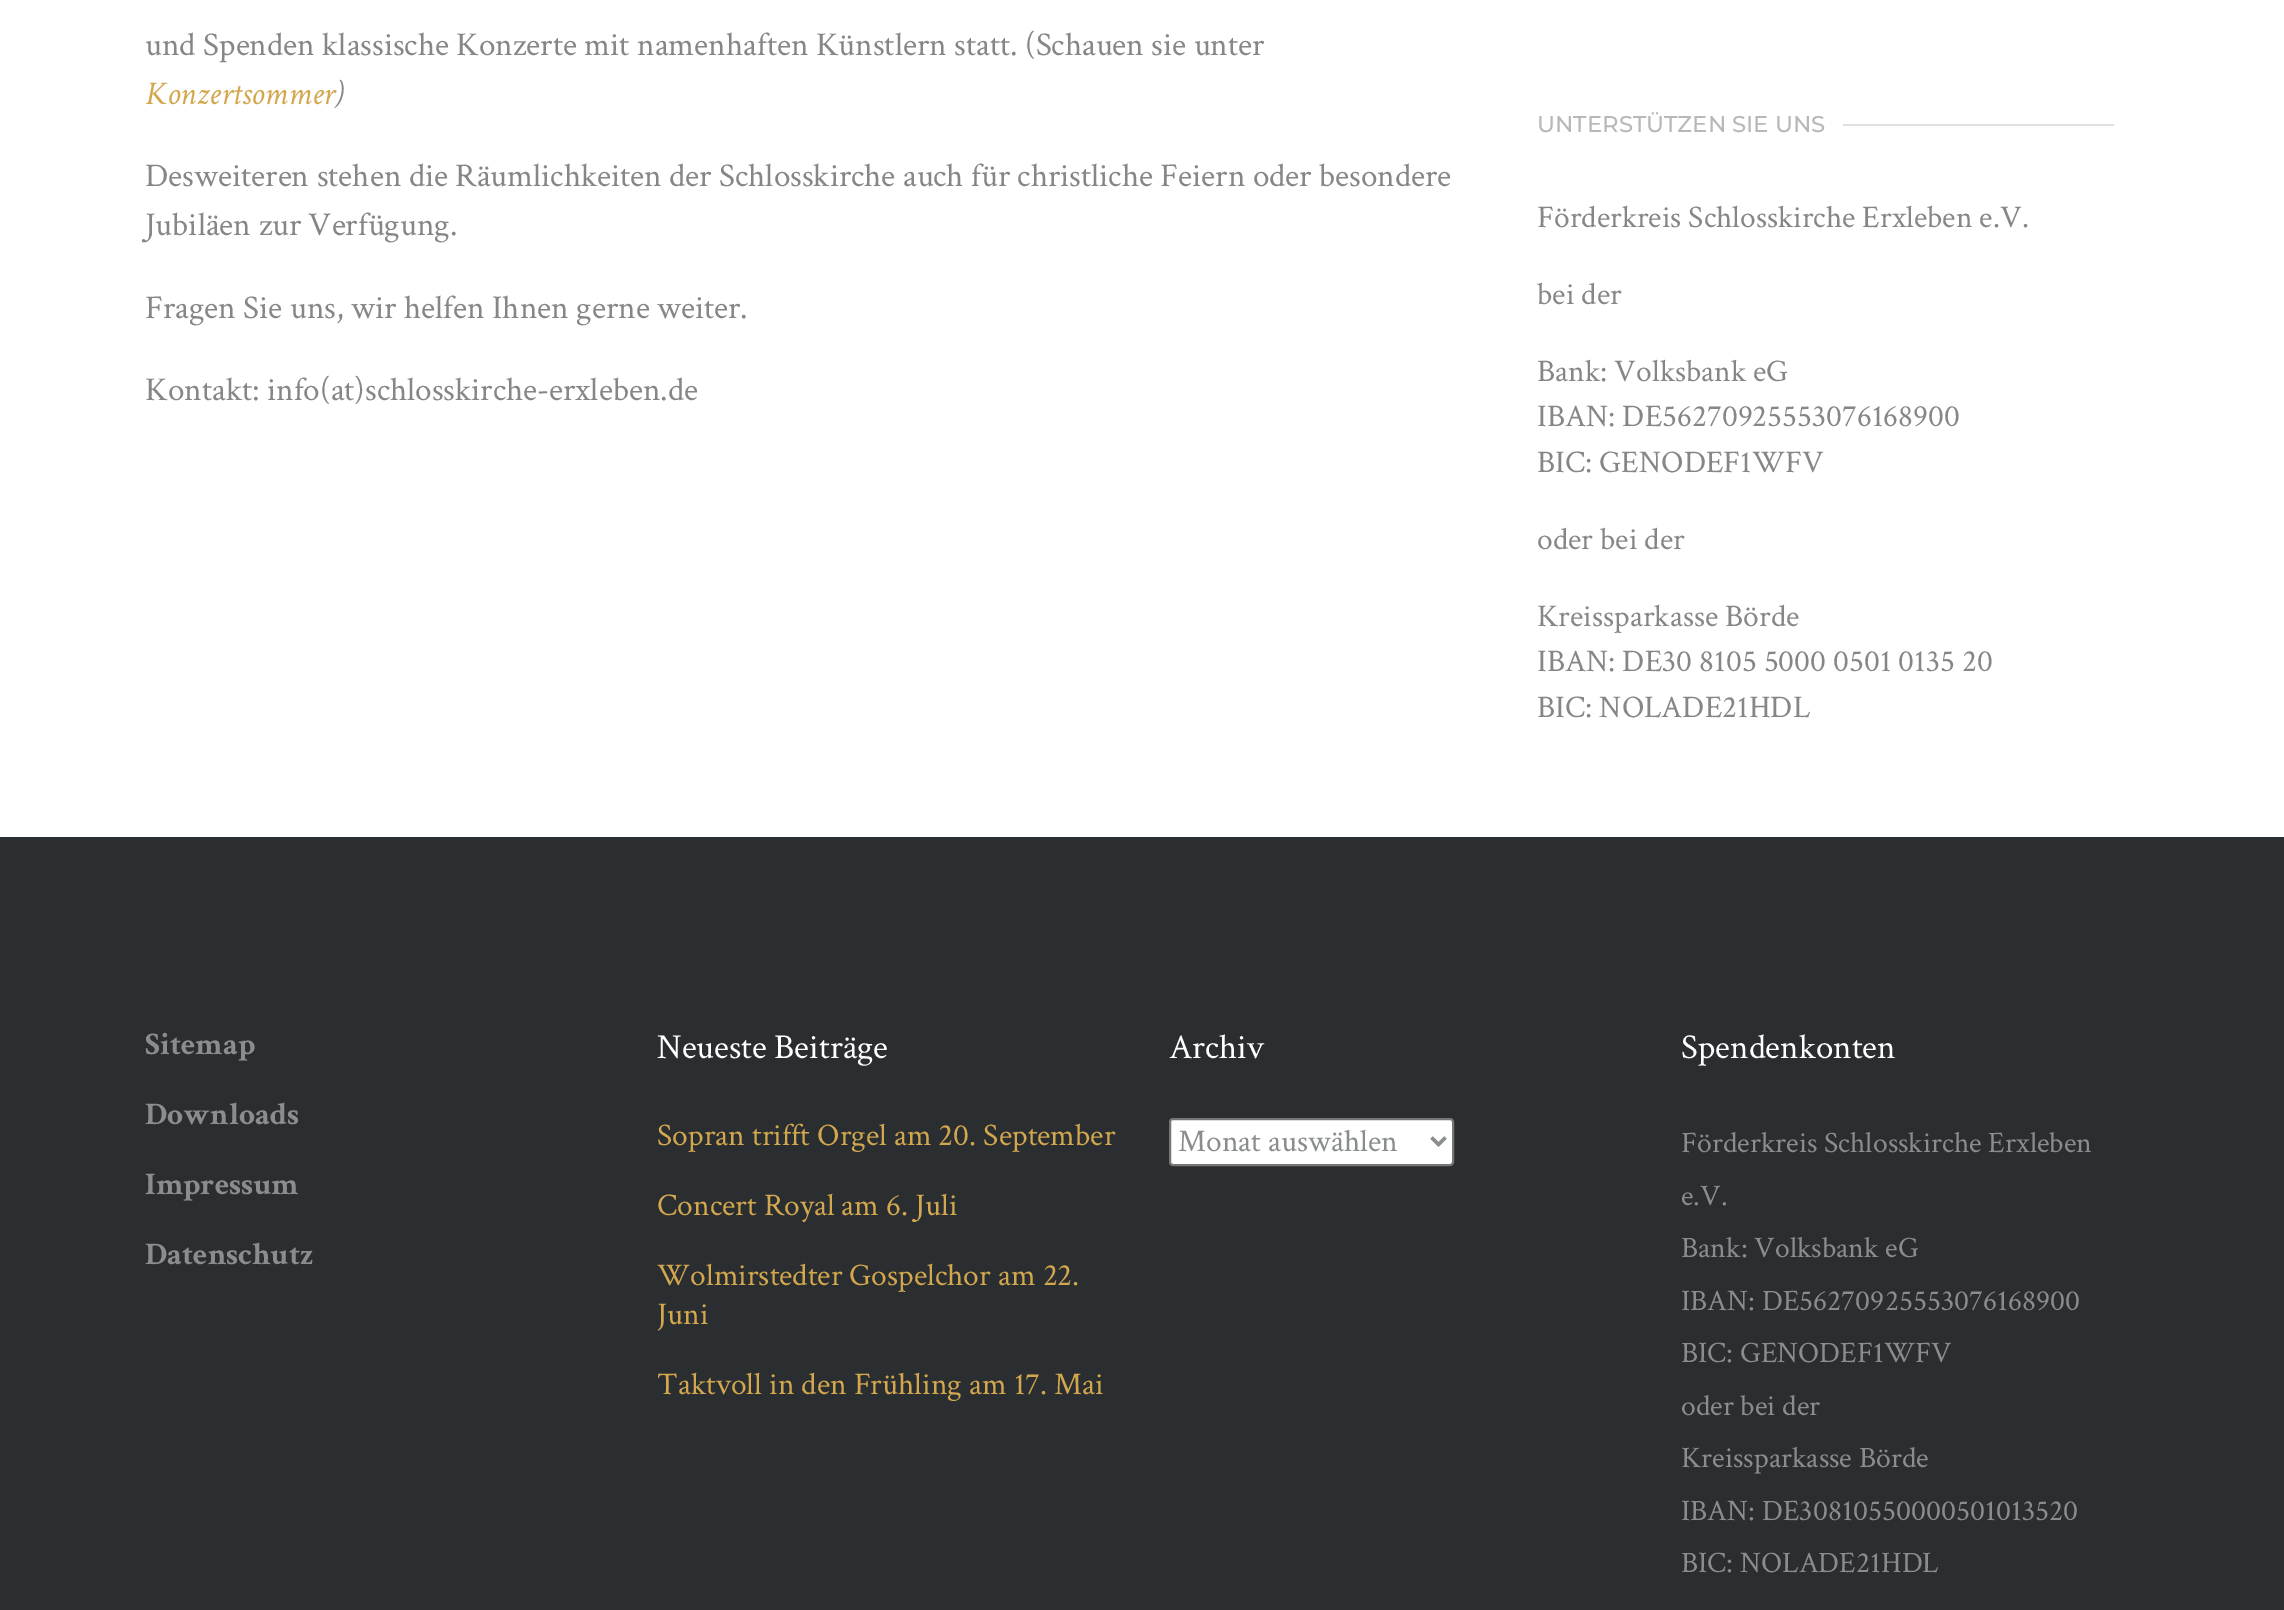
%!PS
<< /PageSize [2284 1610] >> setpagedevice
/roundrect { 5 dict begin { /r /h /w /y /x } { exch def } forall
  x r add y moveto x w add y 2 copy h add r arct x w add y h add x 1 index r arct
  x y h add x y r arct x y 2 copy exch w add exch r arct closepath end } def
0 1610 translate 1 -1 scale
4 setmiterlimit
1 setgray
0 0 2284 1610 rectfill
/CrimsonText-Regular [33.25 0 0 -33.25 0 0] selectfont
0.525 setgray
145 55 moveto (und Spenden klassische Konzerte mit namenhaften Künstlern statt. \(Schauen sie unter) show
/CrimsonText-Italic [33.25 0 0 -33.25 0 0] selectfont
0.824 0.655 0.302 setrgbcolor
145 104 moveto (Konzertsommer) show
0.525 setgray
335 104 moveto (\)) show
/CrimsonText-Regular [33.25 0 0 -33.25 0 0] selectfont
145 186 moveto (Desweiteren stehen die Räumlichkeiten der Schlosskirche auch für christliche Feiern oder besondere) show
145 235 moveto (Jubiläen zur Verfügung.) show
145 318 moveto (Fragen Sie uns, wir helfen Ihnen gerne weiter.) show
145 400 moveto (Kontakt: info\(at\)schlosskirche-erxleben.de) show
/Montserrat-Medium [22.75 0 0 -22.75 0 0] selectfont
0.714 0.722 0.725 setrgbcolor
1537 132 moveto (UNTERSTÜTZEN SIE UNS) show
0.871 0.878 0.882 setrgbcolor
1843 124 271 2 rectfill
/CrimsonText-Regular [31.5 0 0 -31.5 0 0] selectfont
0.525 setgray
1537 227 moveto (Förderkreis Schlosskirche Erxleben e.V.) show
1537 304 moveto (bei der) show
1537 381 moveto (Bank: Volksbank eG) show
1537 426 moveto (IBAN: DE56270925553076168900) show
1537 472 moveto (BIC: GENODEF1WFV) show
1537 549 moveto (oder bei der) show
1537 626 moveto (Kreissparkasse Börde) show
1537 671 moveto (IBAN: DE30 8105 5000 0501 0135 20) show
1537 717 moveto (BIC: NOLADE21HDL) show
0.165 0.18 0.192 setrgbcolor
0 837 2284 773 rectfill
/CrimsonText-Bold [31.5 0 0 -31.5 0 0] selectfont
0.537 0.553 0.557 setrgbcolor
145 1054 moveto (Sitemap) show
145 1124 moveto (Downloads) show
145 1194 moveto (Impressum) show
145 1264 moveto (Datenschutz) show
/CrimsonText-Regular [35 0 0 -35 0 0] selectfont
1 setgray
657 1058 moveto (Neueste Beiträge) show
/CrimsonText-Regular [31.5 0 0 -31.5 0 0] selectfont
0.824 0.655 0.302 setrgbcolor
657 1145 moveto (Sopran trifft Orgel am 20. September) show
657 1215 moveto (Concert Royal am 6. Juli) show
657 1285 moveto (Wolmirstedter Gospelchor am 22.) show
gsave
658 1118 459 319 rectclip
657 1324 moveto (Juni) show
grestore
657 1394 moveto (Taktvoll in den Frühling am 17. Mai) show
/CrimsonText-Regular [35 0 0 -35 0 0] selectfont
1 setgray
1169 1058 moveto (Archiv) show
1170 1119 283 46 3 roundrect gsave fill grestore
0.463 setgray
2 setlinewidth
stroke
0.537 0.553 0.557 setrgbcolor
3.5 setlinewidth
newpath 1431.5 1137.5 moveto 1438.5 1144.5 lineto 1445.5 1137.5 lineto stroke
/CrimsonText-Regular [31.5 0 0 -31.5 0 0] selectfont
1178 1151 moveto (Monat auswählen) show
/CrimsonText-Regular [35 0 0 -35 0 0] selectfont
1 setgray
1681 1058 moveto (Spendenkonten) show
/CrimsonText-Regular [29.75 0 0 -29.75 0 0] selectfont
0.537 0.553 0.557 setrgbcolor
1681 1152 moveto (Förderkreis Schlosskirche Erxleben) show
1681 1205 moveto (e.V.) show
1681 1257 moveto (Bank: Volksbank eG) show
1681 1310 moveto (IBAN: DE56270925553076168900) show
1681 1362 moveto (BIC: GENODEF1WFV) show
1681 1415 moveto (oder bei der) show
1681 1467 moveto (Kreissparkasse Börde) show
1681 1520 moveto (IBAN: DE30810550000501013520) show
1681 1572 moveto (BIC: NOLADE21HDL) show
showpage
